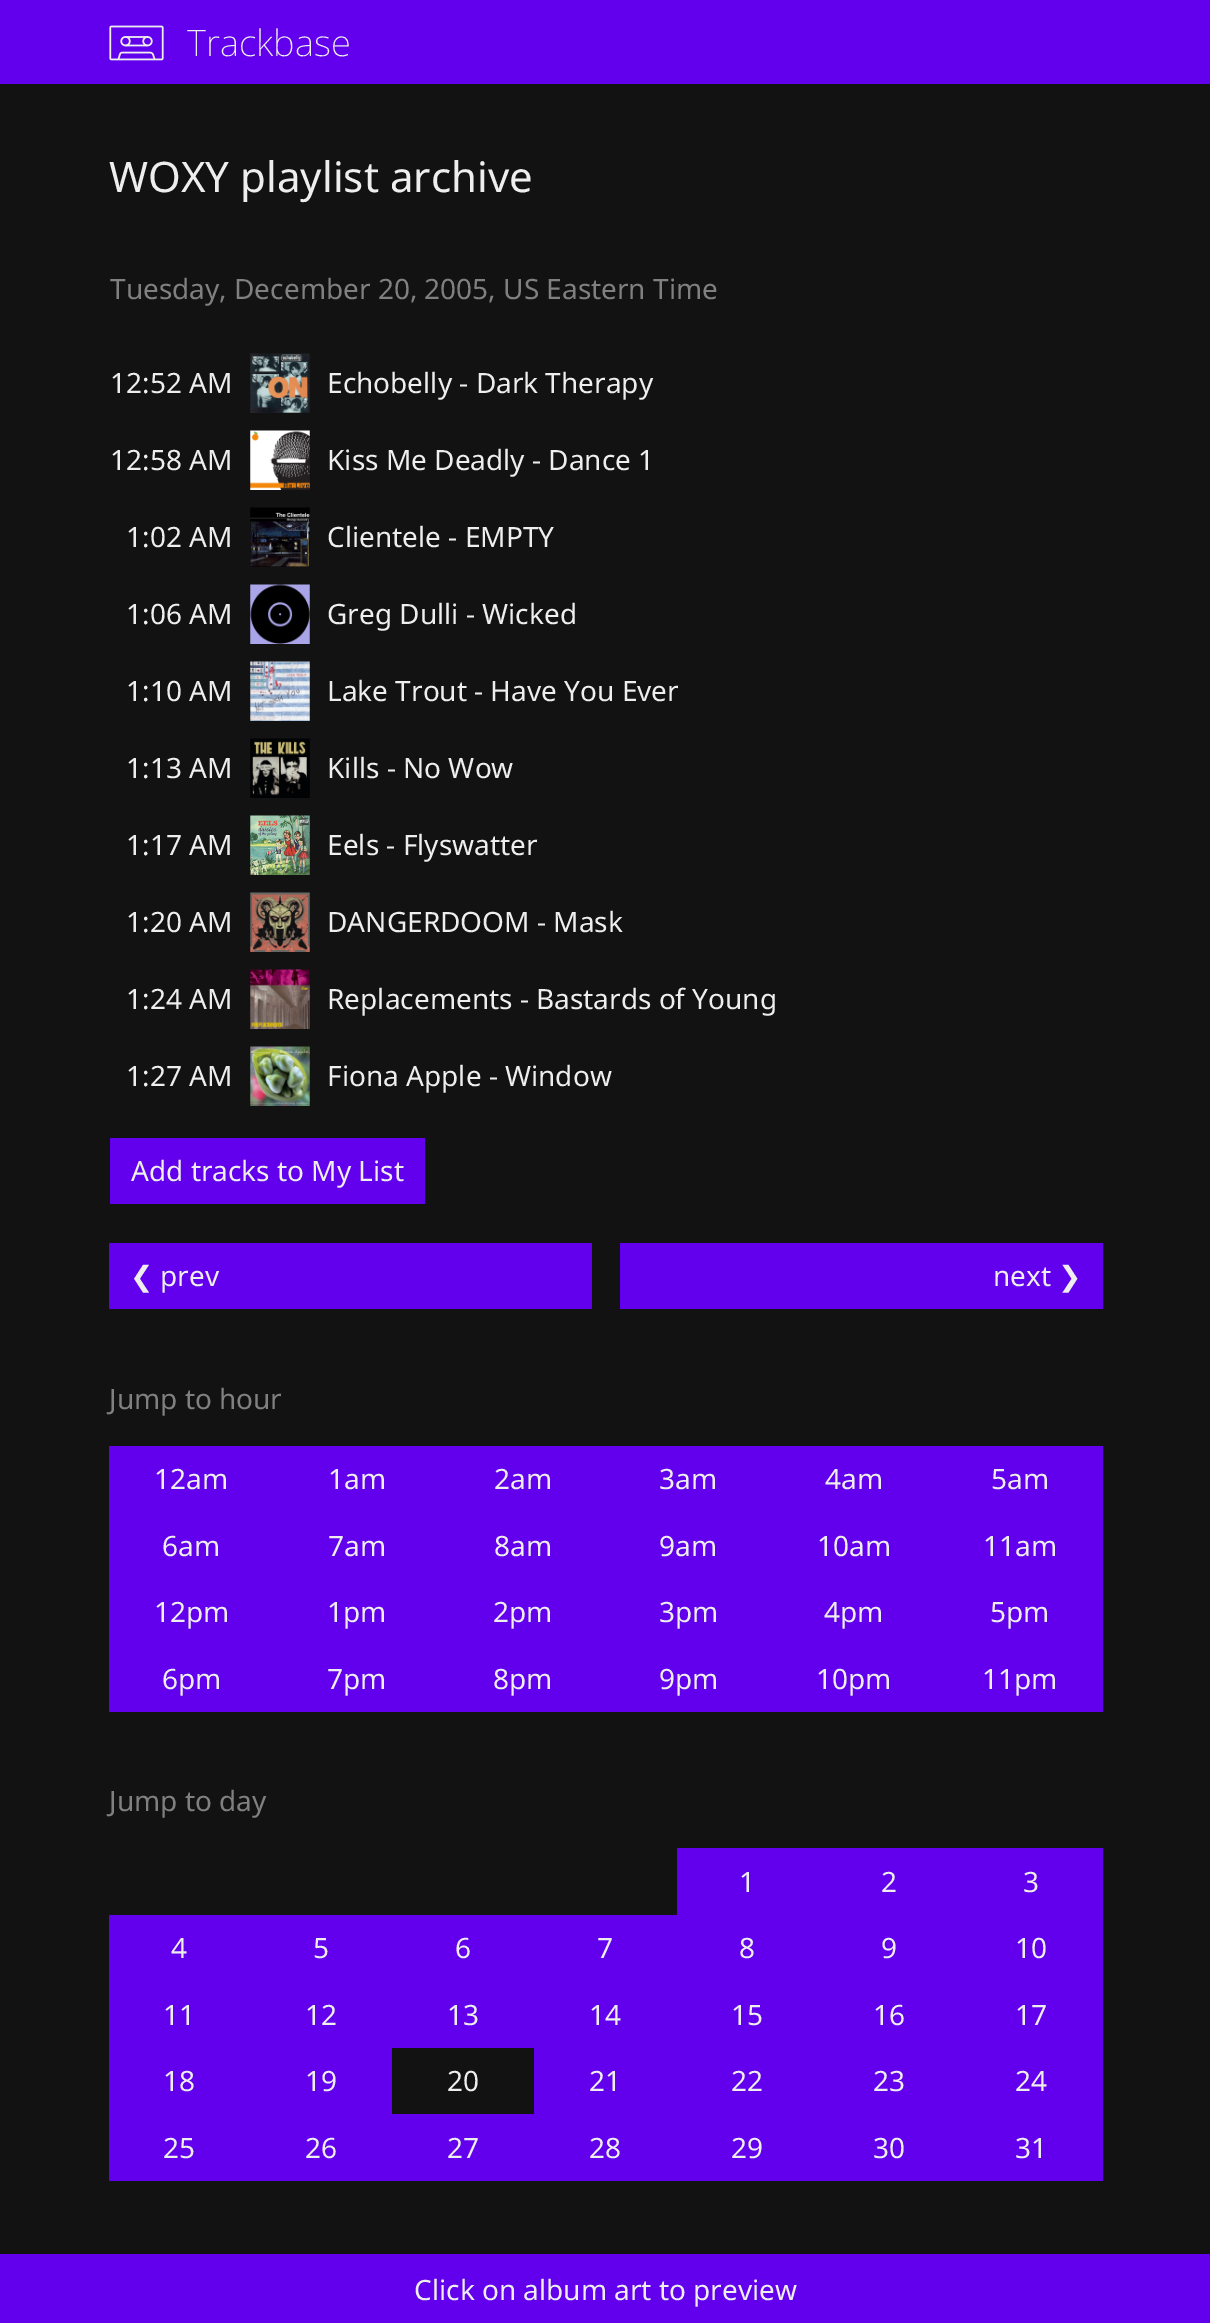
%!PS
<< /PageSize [1210 2323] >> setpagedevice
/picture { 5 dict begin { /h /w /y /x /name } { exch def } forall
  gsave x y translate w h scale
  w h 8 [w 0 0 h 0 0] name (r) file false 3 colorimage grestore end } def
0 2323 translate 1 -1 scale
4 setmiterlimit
0.071 setgray
0 0 1210 2323 rectfill
0.384 0 0.933 setrgbcolor
0 0 1210 84 rectfill
(img1.rgb) 109 25 55 36 picture
/NotoSans-ExtraLight [36.5 0 0 -36.5 0 0] selectfont
0.933 setgray
187 56 moveto (Trackbase) show
/NotoSans-Regular [42 0 0 -42 0 0] selectfont
109 192 moveto (WOXY playlist archive) show
/NotoSans-Regular [28 0 0 -28 0 0] selectfont
0.502 setgray
110 299 moveto (Tuesday, December 20, 2005, US Eastern Time) show
0.933 setgray
110 393 moveto (12:52 AM) show
(img2.rgb) 250 353 60 60 picture
327 393 moveto (Echobelly - Dark Therapy) show
110 470 moveto (12:58 AM) show
(img3.rgb) 250 430 60 60 picture
327 470 moveto (Kiss Me Deadly - Dance 1) show
126 547 moveto (1:02 AM) show
(img4.rgb) 250 507 60 60 picture
327 547 moveto (Clientele - EMPTY) show
126 624 moveto (1:06 AM) show
(img5.rgb) 250 584 60 60 picture
327 624 moveto (Greg Dulli - Wicked) show
126 701 moveto (1:10 AM) show
(img6.rgb) 250 661 60 60 picture
327 701 moveto (Lake Trout - Have You Ever) show
126 778 moveto (1:13 AM) show
(img7.rgb) 250 738 60 60 picture
327 778 moveto (Kills - No Wow) show
126 855 moveto (1:17 AM) show
(img8.rgb) 250 815 60 60 picture
327 855 moveto (Eels - Flyswatter) show
126 932 moveto (1:20 AM) show
(img9.rgb) 250 892 60 60 picture
327 932 moveto (DANGERDOOM - Mask) show
126 1009 moveto (1:24 AM) show
(img10.rgb) 250 969 60 60 picture
327 1009 moveto (Replacements - Bastards of Young) show
126 1086 moveto (1:27 AM) show
(img11.rgb) 250 1046 60 60 picture
327 1086 moveto (Fiona Apple - Window) show
0.384 0 0.933 setrgbcolor
110 1138 315 66 rectfill
0.933 setgray
131 1181 moveto (Add tracks to My List) show
0.384 0 0.933 setrgbcolor
109 1243 483 66 rectfill
/DejaVuSans-Regular [28 0 0 -28 0 0] selectfont
0.933 setgray
130 1286 moveto (❮) show
/NotoSans-Regular [28 0 0 -28 0 0] selectfont
160 1286 moveto (prev) show
0.384 0 0.933 setrgbcolor
620 1243 483 66 rectfill
0.933 setgray
993 1286 moveto (next) show
/DejaVuSans-Regular [28 0 0 -28 0 0] selectfont
1058 1286 moveto (❯) show
/NotoSans-Regular [28 0 0 -28 0 0] selectfont
0.502 setgray
109 1409 moveto (Jump to hour) show
0.384 0 0.933 setrgbcolor
109 1446 994 66 rectfill
0.933 setgray
154 1489 moveto (12am) show
328 1489 moveto (1am) show
494 1489 moveto (2am) show
659 1489 moveto (3am) show
825 1489 moveto (4am) show
991 1489 moveto (5am) show
0.384 0 0.933 setrgbcolor
109 1512 994 67 rectfill
0.933 setgray
162 1556 moveto (6am) show
328 1556 moveto (7am) show
494 1556 moveto (8am) show
659 1556 moveto (9am) show
817 1556 moveto (10am) show
983 1556 moveto (11am) show
0.384 0 0.933 setrgbcolor
109 1579 994 66 rectfill
0.933 setgray
154 1622 moveto (12pm) show
327 1622 moveto (1pm) show
493 1622 moveto (2pm) show
659 1622 moveto (3pm) show
824 1622 moveto (4pm) show
990 1622 moveto (5pm) show
0.384 0 0.933 setrgbcolor
109 1645 994 67 rectfill
0.933 setgray
162 1689 moveto (6pm) show
327 1689 moveto (7pm) show
493 1689 moveto (8pm) show
659 1689 moveto (9pm) show
816 1689 moveto (10pm) show
982 1689 moveto (11pm) show
0.502 setgray
109 1811 moveto (Jump to day) show
0.384 0 0.933 setrgbcolor
677 1848 426 67 rectfill
0.933 setgray
739 1892 moveto (1) show
881 1892 moveto (2) show
1023 1892 moveto (3) show
0.384 0 0.933 setrgbcolor
109 1915 994 66 rectfill
0.933 setgray
171 1958 moveto (4) show
313 1958 moveto (5) show
455 1958 moveto (6) show
597 1958 moveto (7) show
739 1958 moveto (8) show
881 1958 moveto (9) show
1015 1958 moveto (10) show
0.384 0 0.933 setrgbcolor
109 1981 994 67 rectfill
0.933 setgray
163 2025 moveto (11) show
305 2025 moveto (12) show
447 2025 moveto (13) show
589 2025 moveto (14) show
731 2025 moveto (15) show
873 2025 moveto (16) show
1015 2025 moveto (17) show
0.384 0 0.933 setrgbcolor
109 2048 283 66 rectfill
0.933 setgray
163 2091 moveto (18) show
305 2091 moveto (19) show
447 2091 moveto (20) show
0.384 0 0.933 setrgbcolor
534 2048 569 66 rectfill
0.933 setgray
589 2091 moveto (21) show
731 2091 moveto (22) show
873 2091 moveto (23) show
1015 2091 moveto (24) show
0.384 0 0.933 setrgbcolor
109 2114 994 67 rectfill
0.933 setgray
163 2158 moveto (25) show
305 2158 moveto (26) show
447 2158 moveto (27) show
589 2158 moveto (28) show
731 2158 moveto (29) show
873 2158 moveto (30) show
1015 2158 moveto (31) show
0.384 0 0.933 setrgbcolor
0 2254 1210 69 rectfill
0.933 setgray
414 2300 moveto (Click on album art to preview) show
showpage
